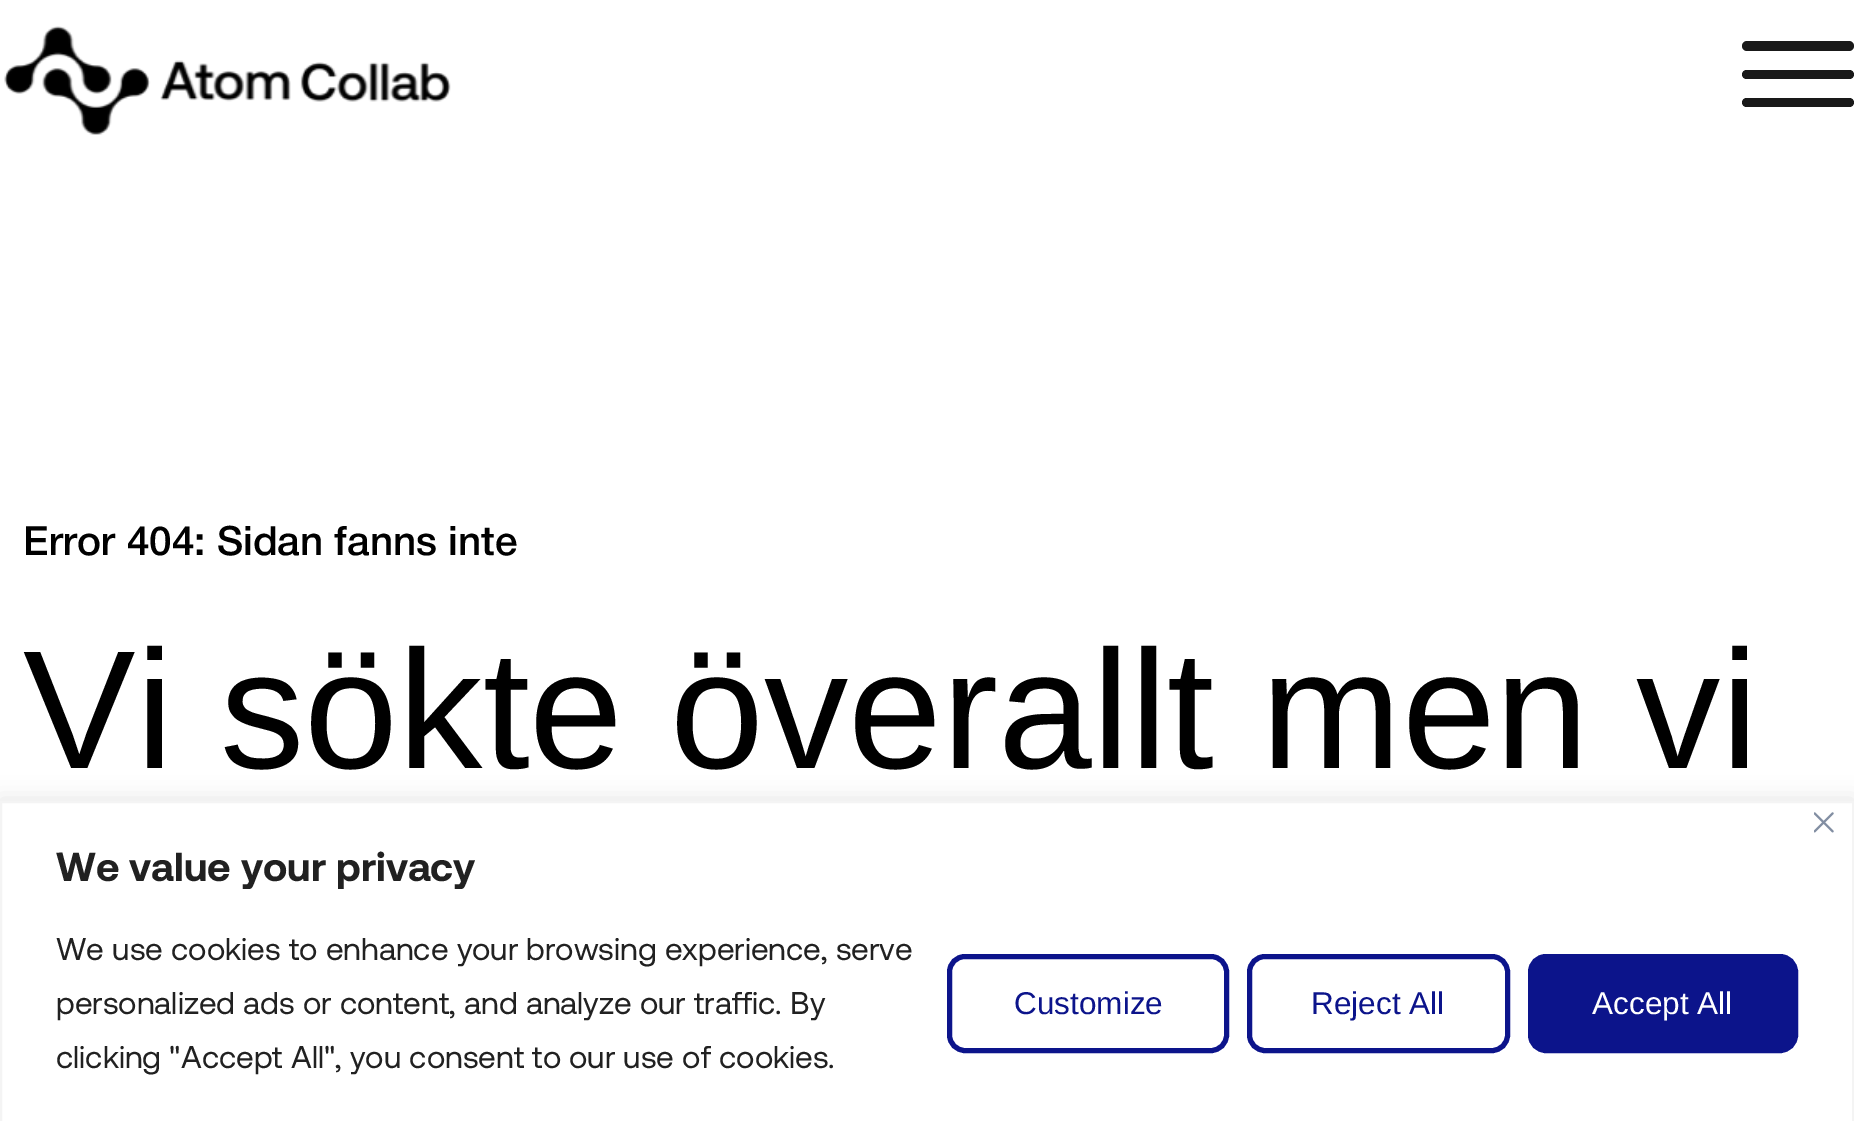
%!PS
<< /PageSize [1854 1121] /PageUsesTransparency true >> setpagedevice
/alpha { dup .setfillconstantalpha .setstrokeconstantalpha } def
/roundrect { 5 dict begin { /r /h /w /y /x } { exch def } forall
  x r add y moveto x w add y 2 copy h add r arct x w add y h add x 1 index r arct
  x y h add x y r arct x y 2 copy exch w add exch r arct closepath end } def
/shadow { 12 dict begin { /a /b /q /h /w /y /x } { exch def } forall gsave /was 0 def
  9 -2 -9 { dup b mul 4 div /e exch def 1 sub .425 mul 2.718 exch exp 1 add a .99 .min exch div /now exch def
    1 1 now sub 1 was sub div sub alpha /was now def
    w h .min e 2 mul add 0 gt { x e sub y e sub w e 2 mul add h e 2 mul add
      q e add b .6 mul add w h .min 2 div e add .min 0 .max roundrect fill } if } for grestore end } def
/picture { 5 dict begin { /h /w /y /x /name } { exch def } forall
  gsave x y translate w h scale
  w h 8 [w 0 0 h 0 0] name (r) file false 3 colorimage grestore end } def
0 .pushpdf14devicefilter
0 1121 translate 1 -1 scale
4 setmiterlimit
1 setgray
0 0 1854 1121 rectfill
(img1.rgb) 4 26 447 109 picture
0.098 setgray
1742 41 112 10 5 roundrect fill
1742 70 112 9 4.5 roundrect fill
1742 98 112 9 4.5 roundrect fill
/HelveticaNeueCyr-Medium [40.5 0 0 -40.5 0 0] selectfont
0 setgray
23 555 moveto (Error 404: Sidan fanns inte) show
/LiberationSans-Regular [168.75 0 0 -168.75 0 0] selectfont
23 768 moveto (Vi sökte överallt men vi) show
0.675 0.671 0.671 setrgbcolor
0 799 1854 322 0 11 0.3 shadow
1 setgray
newpath 1 802 moveto 1853 802 lineto 1853 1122 lineto 1 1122 lineto closepath gsave fill grestore
0.957 setgray
2 setlinewidth
stroke
(img2.rgb) 1814 812 20 21 picture
/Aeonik-Bold [40.5 0 0 -40.5 0 0] selectfont
0.129 setgray
56 881 moveto (We value your privacy) show
/Aeonik-Regular [31.5 0 0 -31.5 0 0] selectfont
56 960 moveto (We use cookies to enhance your browsing experience, serve) show
56 1014 moveto (personalized ads or content, and analyze our traffic. By) show
56 1068 moveto (clicking "Accept All", you consent to our use of cookies.) show
0.047 0.078 0.545 setrgbcolor
5 setlinewidth
949.5 956.5 277 94 15.5 roundrect stroke
/LiberationSans-Regular [31.5 0 0 -31.5 0 0] selectfont
1014 1014 moveto (Customize) show
1249.5 956.5 258 94 15.5 roundrect stroke
1311 1014 moveto (Reject All) show
1530.5 956.5 265 94 15.5 roundrect gsave fill grestore
stroke
1 setgray
1592 1014 moveto (Accept All) show
.poppdf14devicefilter showpage
